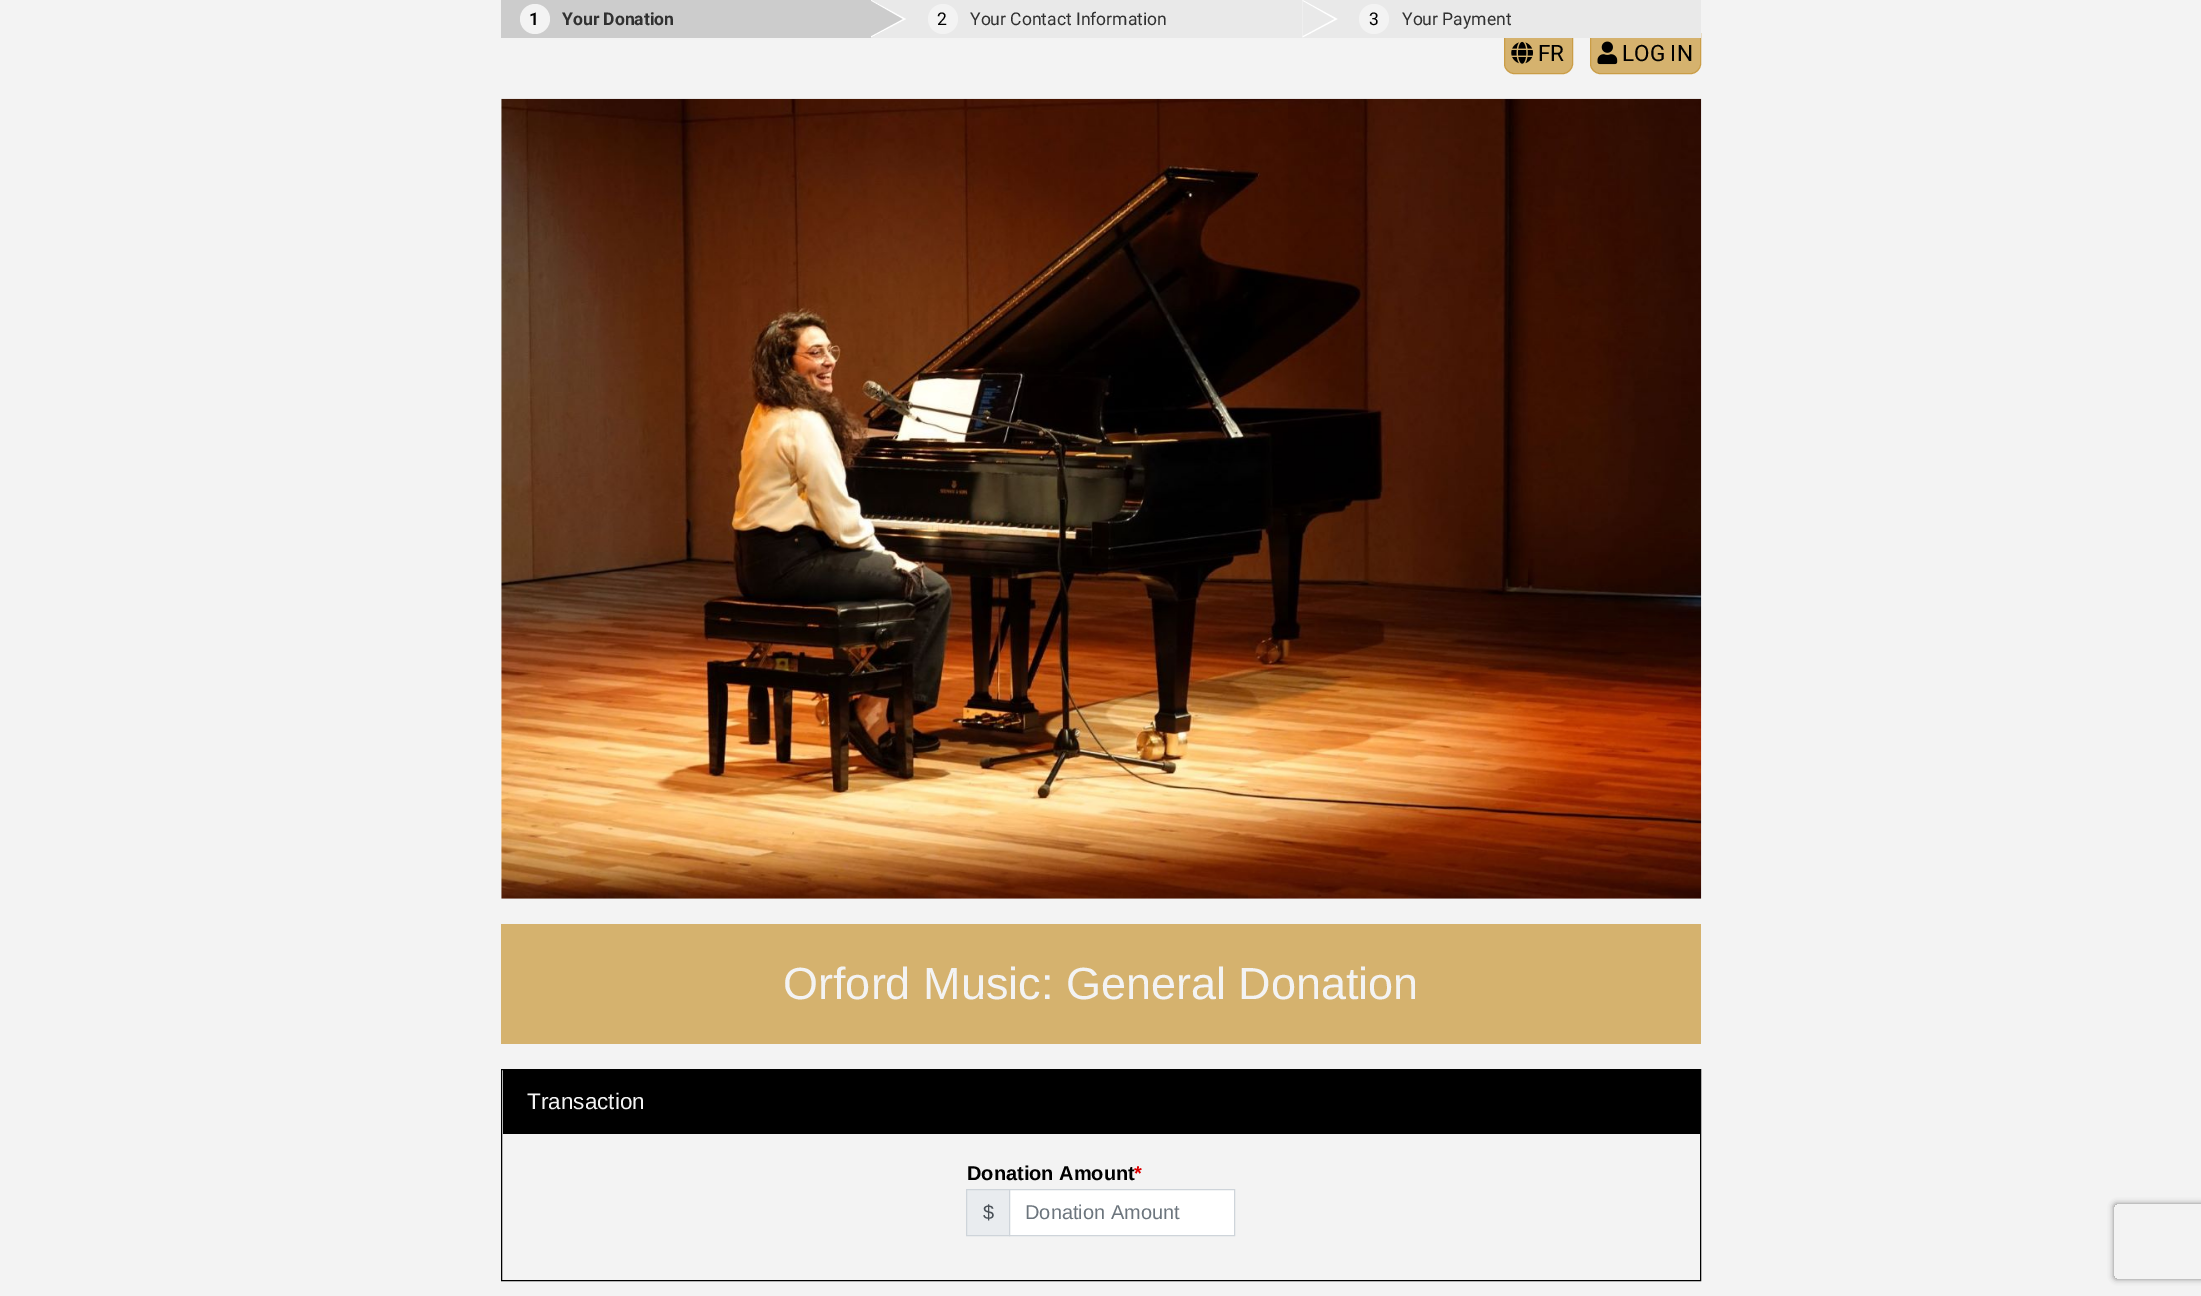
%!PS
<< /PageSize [2201 1296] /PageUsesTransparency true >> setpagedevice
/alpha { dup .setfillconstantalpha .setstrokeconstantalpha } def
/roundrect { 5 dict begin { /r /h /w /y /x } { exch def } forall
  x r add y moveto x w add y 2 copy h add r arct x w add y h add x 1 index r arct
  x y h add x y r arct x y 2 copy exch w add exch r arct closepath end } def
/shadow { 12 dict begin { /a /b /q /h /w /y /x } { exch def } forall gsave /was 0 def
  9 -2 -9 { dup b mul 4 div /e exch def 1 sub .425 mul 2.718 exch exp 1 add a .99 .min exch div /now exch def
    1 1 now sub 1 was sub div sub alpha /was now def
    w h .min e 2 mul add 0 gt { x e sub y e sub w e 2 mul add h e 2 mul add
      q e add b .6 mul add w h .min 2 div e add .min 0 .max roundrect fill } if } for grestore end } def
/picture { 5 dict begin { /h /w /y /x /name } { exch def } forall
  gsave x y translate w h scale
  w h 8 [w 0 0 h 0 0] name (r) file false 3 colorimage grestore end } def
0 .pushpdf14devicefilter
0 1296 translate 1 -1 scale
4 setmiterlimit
0.953 setgray
0 0 2201 1296 rectfill
0.835 0.698 0.431 setrgbcolor
newpath 1504.5 33.5 moveto 1572.5 33.5 lineto 1572.5 64 lineto 1572.5 69 1568 73.5 1563 73.5 curveto 1514 73.5 lineto 1509 73.5 1504.5 69 1504.5 64 curveto closepath gsave fill grestore
0.792 0.616 0.275 setrgbcolor
stroke
0.835 0.698 0.431 setrgbcolor
newpath 1590.5 33.5 moveto 1700.5 33.5 lineto 1700.5 64 lineto 1700.5 69 1696 73.5 1691 73.5 curveto 1600 73.5 lineto 1595 73.5 1590.5 69 1590.5 64 curveto closepath gsave fill grestore
0.792 0.616 0.275 setrgbcolor
stroke
0.914 setgray
925 0 776 38 rectfill
0.8 setgray
501 0 405 38 rectfill
0.914 setgray
newpath 871 0 moveto 925 0 lineto 906 19 lineto closepath fill
906 0 19 38 rectfill
newpath 925 38 moveto 871 38 lineto 906 19 lineto closepath fill
1 setgray
newpath 871 37.5 moveto 871 0 lineto 906 19 lineto closepath fill
0.953 setgray
newpath 535 19 15 0 360 arc closepath fill
/Roboto-Bold [17.5 0 0 -17.5 0 0] selectfont
0 setgray
529 25 moveto (1) show
0.192 setgray
562 25 moveto (Your Donation) show
0.8 setgray
newpath 871 36 moveto 871 1 lineto 902.5 19 lineto closepath fill
1 setgray
newpath 1302.5 37.5 moveto 1302.5 0 lineto 1337.5 19 lineto closepath fill
0.953 setgray
newpath 943 19 15 0 360 arc closepath fill
/Roboto-Regular [17.5 0 0 -17.5 0 0] selectfont
0 setgray
937 25 moveto (2) show
0.192 setgray
970 25 moveto (Your Contact Information) show
0.914 setgray
newpath 1302.5 36 moveto 1302.5 1 lineto 1334 19 lineto closepath fill
0.953 setgray
newpath 1374 19 15 0 360 arc closepath fill
0 setgray
1369 25 moveto (3) show
0.192 setgray
1402 25 moveto (Your Payment) show
(img1.rgb) 1511 41 23 23 picture
/Roboto-Regular [22.5 0 0 -22.5 0 0] selectfont
0 setgray
1538 61 moveto (FR) show
(img2.rgb) 1597 41 21 24 picture
1622 61 moveto (LOG IN) show
(img3.rgb) 501 98 1201 801 picture
0.835 0.698 0.431 setrgbcolor
501 924 1200 120 rectfill
/LiberationSans-Regular [45 0 0 -45 0 0] selectfont
0.953 setgray
783 999 moveto (Orford Music: General Donation) show
0 setgray
501.5 1069.5 1199 211 rectstroke
503 1070 1197 64 rectfill
/LiberationSans-Regular [22.5 0 0 -22.5 0 0] selectfont
0.953 setgray
527 1109 moveto (Transaction) show
/LiberationSans-Bold [20 0 0 -20 0 0] selectfont
0 setgray
967 1180 moveto (Donation Amount) show
0.867 0 0 setrgbcolor
1134 1180 moveto (*) show
0.914 0.925 0.937 setrgbcolor
newpath 966.5 1189.5 moveto 1009.5 1189.5 lineto 1009.5 1235.5 lineto 966.5 1235.5 lineto closepath gsave fill grestore
0.808 0.831 0.855 setrgbcolor
stroke
/LiberationSans-Regular [20 0 0 -20 0 0] selectfont
0.286 0.314 0.341 setrgbcolor
983 1219 moveto ($) show
1 setgray
newpath 1009.5 1189.5 moveto 1234.5 1189.5 lineto 1234.5 1235.5 lineto 1009.5 1235.5 lineto closepath gsave fill grestore
0.808 0.831 0.855 setrgbcolor
stroke
0.424 0.459 0.49 setrgbcolor
1025 1219 moveto (Donation Amount) show
gsave
newpath 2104 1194 moveto 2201 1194 lineto 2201 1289 lineto 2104 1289 lineto closepath 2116.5 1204 moveto 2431.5 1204 lineto 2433 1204 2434 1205 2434 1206.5 curveto 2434 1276.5 lineto 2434 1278 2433 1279 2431.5 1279 curveto 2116.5 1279 lineto 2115 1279 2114 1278 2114 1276.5 curveto 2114 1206.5 lineto 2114 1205 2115 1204 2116.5 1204 curveto closepath eoclip newpath
0.502 setgray
2114 1204 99 75 2.5 3 1 shadow
grestore
.poppdf14devicefilter showpage
